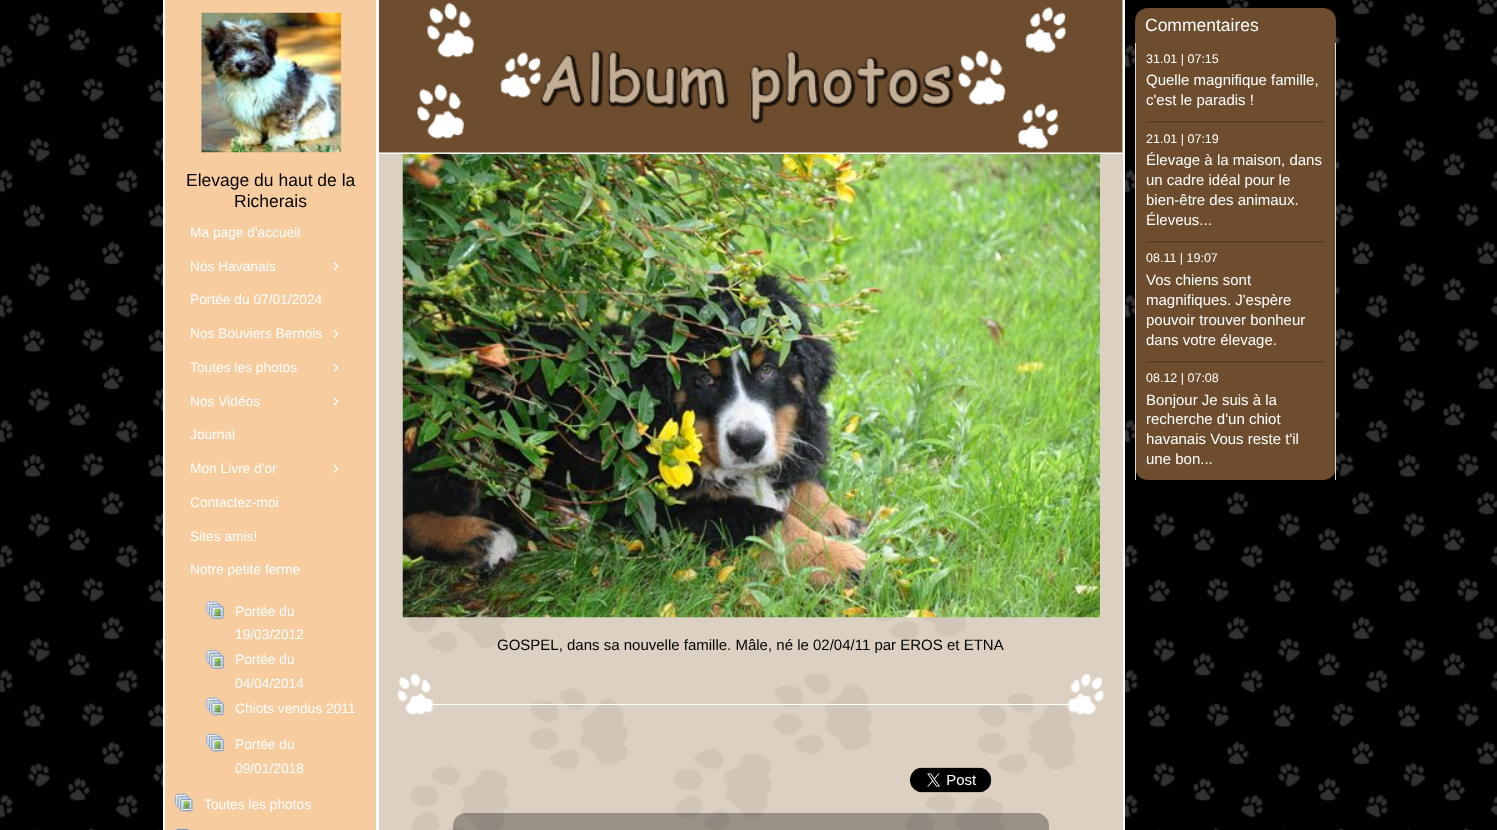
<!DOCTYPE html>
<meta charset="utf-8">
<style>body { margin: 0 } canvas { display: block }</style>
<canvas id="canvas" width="1497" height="830"></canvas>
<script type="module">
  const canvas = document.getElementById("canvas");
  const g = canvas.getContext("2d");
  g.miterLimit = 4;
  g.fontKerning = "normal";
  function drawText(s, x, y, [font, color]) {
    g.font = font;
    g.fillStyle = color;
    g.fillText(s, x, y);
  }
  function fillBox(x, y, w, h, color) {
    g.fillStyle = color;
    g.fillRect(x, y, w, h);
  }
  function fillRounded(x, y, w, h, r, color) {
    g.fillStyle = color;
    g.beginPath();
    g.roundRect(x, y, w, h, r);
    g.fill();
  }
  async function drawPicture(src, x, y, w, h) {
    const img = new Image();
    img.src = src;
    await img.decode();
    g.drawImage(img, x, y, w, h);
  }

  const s1 = ["17.5px Liberation Sans", "#000000"];
  const s2 = ["13.75px Liberation Sans", "#FFFFFF"];
  const s3 = ["15px Liberation Sans", "#000000"];
  const s4 = ["17.5px Liberation Sans", "#FFFFFF"];
  const s5 = ["12.5px Liberation Sans", "#FFFFFF"];
  const s6 = ["15px Liberation Sans", "#FFFFFF"];

  fillBox(0, 0, 1497, 830, "#000000");
  await drawPicture("pic1.png", 0, 0, 1497, 830);
  fillBox(163, 0, 962, 830, "#FFFFFF");
  fillBox(165, 0, 211, 830, "#F7CC9F");
  await drawPicture("pic2.png", 201, 12, 141, 141);
  drawText("Elevage du haut de la", 186, 186, s1);
  drawText("Richerais", 234, 207, s1);
  await drawPicture("pic3.png", 206, 601, 18, 18);
  drawText("Portée du", 235, 616, s2);
  drawText("19/03/2012", 235, 639, s2);
  await drawPicture("pic4.png", 206, 649, 18, 20);
  drawText("Portée du", 235, 664, s2);
  drawText("04/04/2014", 235, 688, s2);
  await drawPicture("pic5.png", 206, 697, 18, 19);
  drawText("Chiots vendus 2011", 235, 713, s2);
  await drawPicture("pic6.png", 206, 733, 18, 19);
  drawText("Portée du", 235, 749, s2);
  drawText("09/01/2018", 235, 773, s2);
  await drawPicture("pic7.png", 174, 793, 19, 19);
  drawText("Toutes les photos", 204, 809, s2);
  await drawPicture("pic8.png", 175, 828, 15, 2);
  fillBox(379, 0, 744, 830, "#DBD0C1");
  await drawPicture("pic9.png", 407, 152, 668, 678);
  fillBox(379, 153, 744, 1, "#FFFFFF");
  await drawPicture("pic10.png", 378, 0, 745, 153);
  await drawPicture("pic11.png", 402, 153, 698, 465);
  drawText("GOSPEL, dans sa nouvelle famille. Mâle, né le 02/04/11 par EROS et ETNA", 497, 650, s3);
  await drawPicture("pic12.png", 397, 674, 37, 41);
  fillBox(434, 704, 634, 1, "#FFFFFF");
  await drawPicture("pic13.png", 1067, 674, 37, 41);
  await drawPicture("pic14.png", 910, 767, 82, 26);
  fillRounded(453, 813, 596, 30, 13, "rgba(0, 0, 0, 0.3)");
  fillRounded(1135, 8, 201, 472, 13, "#6D4D2E");
  drawText("Commentaires", 1145, 31, s4);
  fillBox(1335, 43, 1, 437, "#DADADA");
  fillBox(1135, 43, 1, 437, "#DADADA");
  drawText("31.01 | 07:15", 1146, 63, s5);
  drawText("Quelle magnifique famille,", 1146, 85, s6);
  drawText("c'est le paradis !", 1146, 105, s6);
  await drawPicture("pic15.png", 1146, 121, 179, 2);
  drawText("21.01 | 07:19", 1146, 143, s5);
  drawText("Élevage à la maison, dans", 1146, 165, s6);
  drawText("un cadre idéal pour le", 1146, 185, s6);
  drawText("bien-être des animaux.", 1146, 205, s6);
  drawText("Éleveus...", 1146, 225, s6);
  await drawPicture("pic15.png", 1146, 241, 179, 2);
  drawText("08.11 | 19:07", 1146, 262, s5);
  drawText("Vos chiens sont", 1146, 285, s6);
  drawText("magnifiques. J'espère", 1146, 305, s6);
  drawText("pouvoir trouver bonheur", 1146, 325, s6);
  drawText("dans votre élevage.", 1146, 345, s6);
  await drawPicture("pic15.png", 1146, 361, 179, 2);
  drawText("08.12 | 07:08", 1146, 382, s5);
  drawText("Bonjour Je suis à la", 1146, 405, s6);
  drawText("recherche d'un chiot", 1146, 424, s6);
  drawText("havanais Vous reste t'il", 1146, 444, s6);
  drawText("une bon...", 1146, 464, s6);
  drawText("Ma page d'accueil", 190, 237, s2);
  drawText("Nos Havanais", 190, 271, s2);
  await drawPicture("pic16.png", 333, 262, 6, 9);
  drawText("Portée du 07/01/2024", 190, 304, s2);
  drawText("Nos Bouviers Bernois", 190, 338, s2);
  await drawPicture("pic17.png", 333, 329, 6, 9);
  drawText("Toutes les photos", 190, 372, s2);
  await drawPicture("pic18.png", 333, 363, 6, 9);
  drawText("Nos Vidéos", 190, 406, s2);
  await drawPicture("pic16.png", 333, 397, 6, 9);
  drawText("Journal", 190, 439, s2);
  drawText("Mon Livre d'or", 190, 473, s2);
  await drawPicture("pic17.png", 333, 464, 6, 9);
  drawText("Contactez-moi", 190, 507, s2);
  drawText("Sites amis!", 190, 541, s2);
  drawText("Notre petite ferme", 190, 574, s2);
</script>
